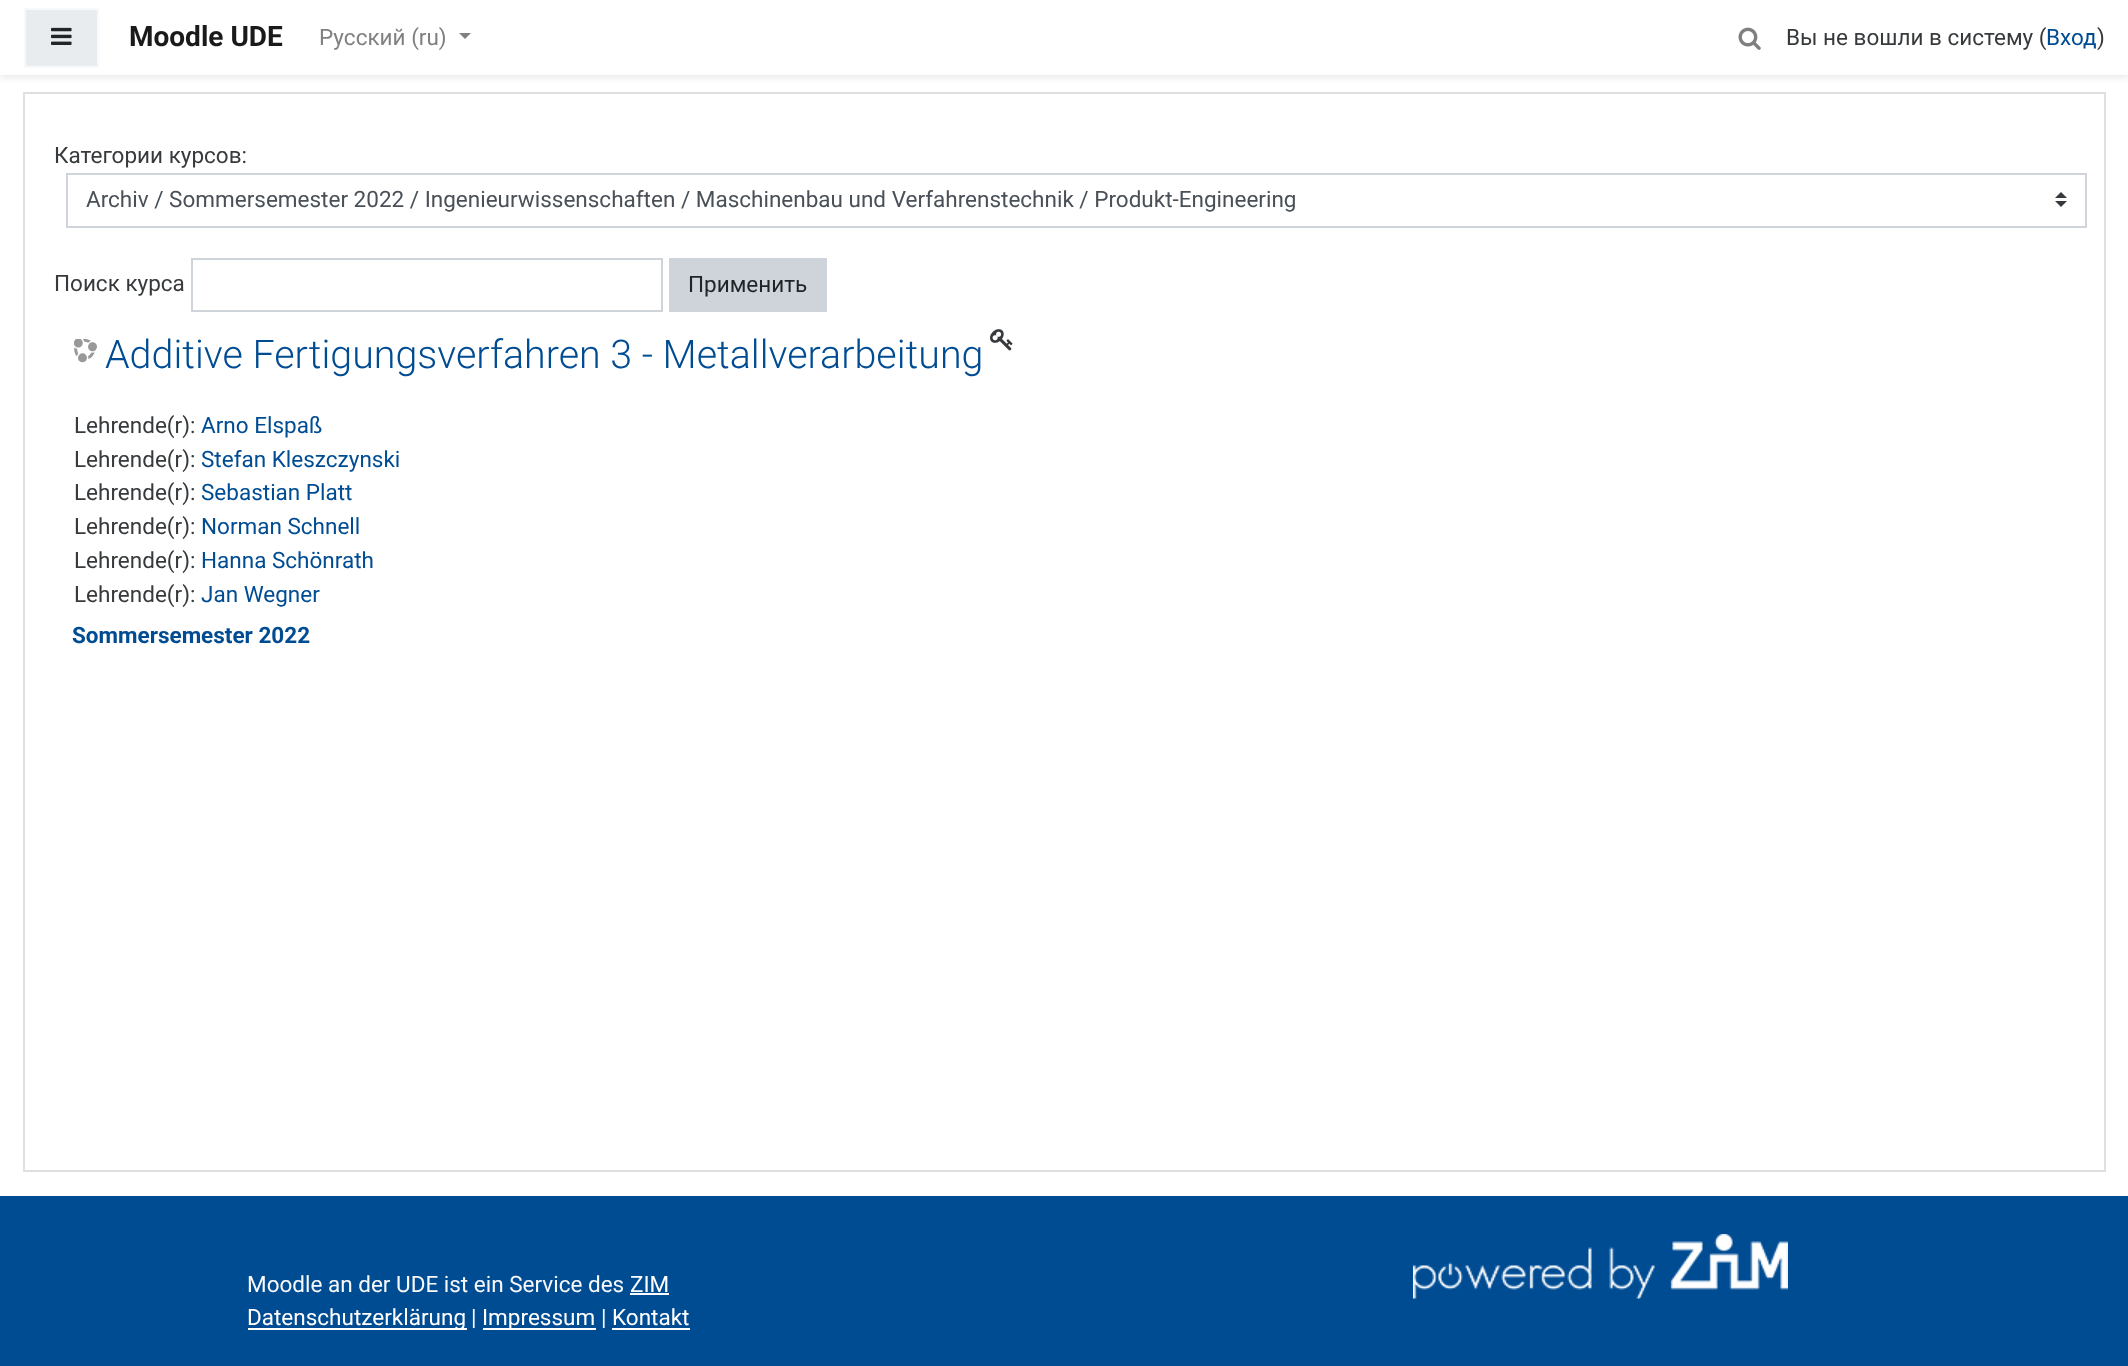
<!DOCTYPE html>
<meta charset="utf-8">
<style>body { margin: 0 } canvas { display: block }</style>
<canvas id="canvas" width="2128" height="1366"></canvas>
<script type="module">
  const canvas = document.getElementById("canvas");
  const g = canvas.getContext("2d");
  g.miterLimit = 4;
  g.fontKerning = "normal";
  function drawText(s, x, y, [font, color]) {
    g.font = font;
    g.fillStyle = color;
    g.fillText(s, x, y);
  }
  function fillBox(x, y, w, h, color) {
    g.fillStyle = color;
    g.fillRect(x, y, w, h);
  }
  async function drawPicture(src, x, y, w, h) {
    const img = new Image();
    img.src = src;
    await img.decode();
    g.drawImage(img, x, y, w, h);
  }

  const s1 = ["bold 28px Roboto", "#1A1A1A"];
  const s2 = ["22.5px Roboto", "#808080"];
  const s3 = ["22.5px Roboto", "#373A3C"];
  const s4 = ["22.5px Roboto", "#004C93"];
  const s5 = ["22.5px Roboto", "#495057"];
  const s6 = ["22.5px Roboto", "#212529"];
  const s7 = ["300 39.4px Roboto", "#004C93"];
  const s8 = ["bold 22.5px Roboto", "#004C93"];
  const s9 = ["22.5px Roboto", "#F8F9FA"];
  const s10 = ["22.5px Roboto", "#FFFFFF"];

  fillBox(0, 0, 2128, 1366, "#FFFFFF");
  g.fillStyle = "rgba(0, 0, 0, 0.08)";
  g.filter = "blur(3px)";
  g.beginPath();
  g.rect(0, 3, 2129, 75);
  g.fill();
  g.filter = "none";
  fillBox(0, 0, 2128, 75, "#FFFFFF");
  g.fillStyle = "#E9ECEF";
  g.beginPath();
  g.rect(25, 9, 73, 58);
  g.fill();
  g.strokeStyle = "#F8F9FA";
  g.lineWidth = 2;
  g.stroke();
  await drawPicture("pic1.png", 51, 27, 21, 18);
  drawText("Moodle UDE", 129, 46, s1);
  drawText("Русский (ru)", 319, 45, s2);
  g.beginPath();
  g.moveTo(459, 33);
  g.lineTo(471, 33);
  g.lineTo(465, 39);
  g.closePath();
  g.fill();
  await drawPicture("pic2.png", 1738, 27, 23, 23);
  drawText("Вы не вошли в систему (", 1786, 45, s3);
  drawText("Вход", 2046, 45, s4);
  drawText(")", 2097, 45, s3);
  g.strokeStyle = "#DFDFDF";
  g.strokeRect(24, 93, 2081, 1078);
  drawText("Категории курсов:", 54, 163, s3);
  await drawPicture("pic3.png", 2055, 192, 12, 15);
  g.strokeStyle = "#CED4DA";
  g.strokeRect(67, 174, 2019, 53);
  drawText("Archiv / Sommersemester 2022 / Ingenieurwissenschaften / Maschinenbau und Verfahrenstechnik / Produkt-Engineering", 86, 207, s5);
  drawText("Поиск курса", 54, 291, s3);
  g.strokeRect(192, 259, 470, 52);
  fillBox(669, 258, 158, 54, "#CED4DA");
  drawText("Применить", 688, 292, s6);
  await drawPicture("pic4.png", 74, 339, 23, 24);
  drawText("Additive Fertigungsverfahren 3 - Metallverarbeitung", 105, 368, s7);
  await drawPicture("pic5.png", 990, 329, 23, 22);
  drawText("Lehrende(r):", 74, 433, s3);
  drawText("Arno Elspaß", 201, 433, s4);
  drawText("Lehrende(r):", 74, 467, s3);
  drawText("Stefan Kleszczynski", 201, 467, s4);
  drawText("Lehrende(r):", 74, 500, s3);
  drawText("Sebastian Platt", 201, 500, s4);
  drawText("Lehrende(r):", 74, 534, s3);
  drawText("Norman Schnell", 201, 534, s4);
  drawText("Lehrende(r):", 74, 568, s3);
  drawText("Hanna Schönrath", 201, 568, s4);
  drawText("Lehrende(r):", 74, 602, s3);
  drawText("Jan Wegner", 201, 602, s4);
  drawText("Sommersemester 2022", 72, 643, s8);
  fillBox(0, 1196, 2128, 170, "#004C93");
  drawText("Moodle an der UDE ist ein Service des", 247, 1292, s9);
  drawText("ZIM", 630, 1292, s10);
  fillBox(630, 1293, 39, 2, "#FFFFFF");
  fillBox(248, 1328, 219, 2, "#FFFFFF");
  drawText("Datenschutzerklärung", 247, 1325, s10);
  drawText("|", 471, 1325, s9);
  fillBox(483, 1328, 113, 2, "#FFFFFF");
  drawText("Impressum", 482, 1325, s10);
  drawText("|", 601, 1325, s9);
  drawText("Kontakt", 612, 1325, s10);
  fillBox(612, 1328, 78, 2, "#FFFFFF");
  await drawPicture("pic6.png", 1413, 1234, 375, 65);
</script>
